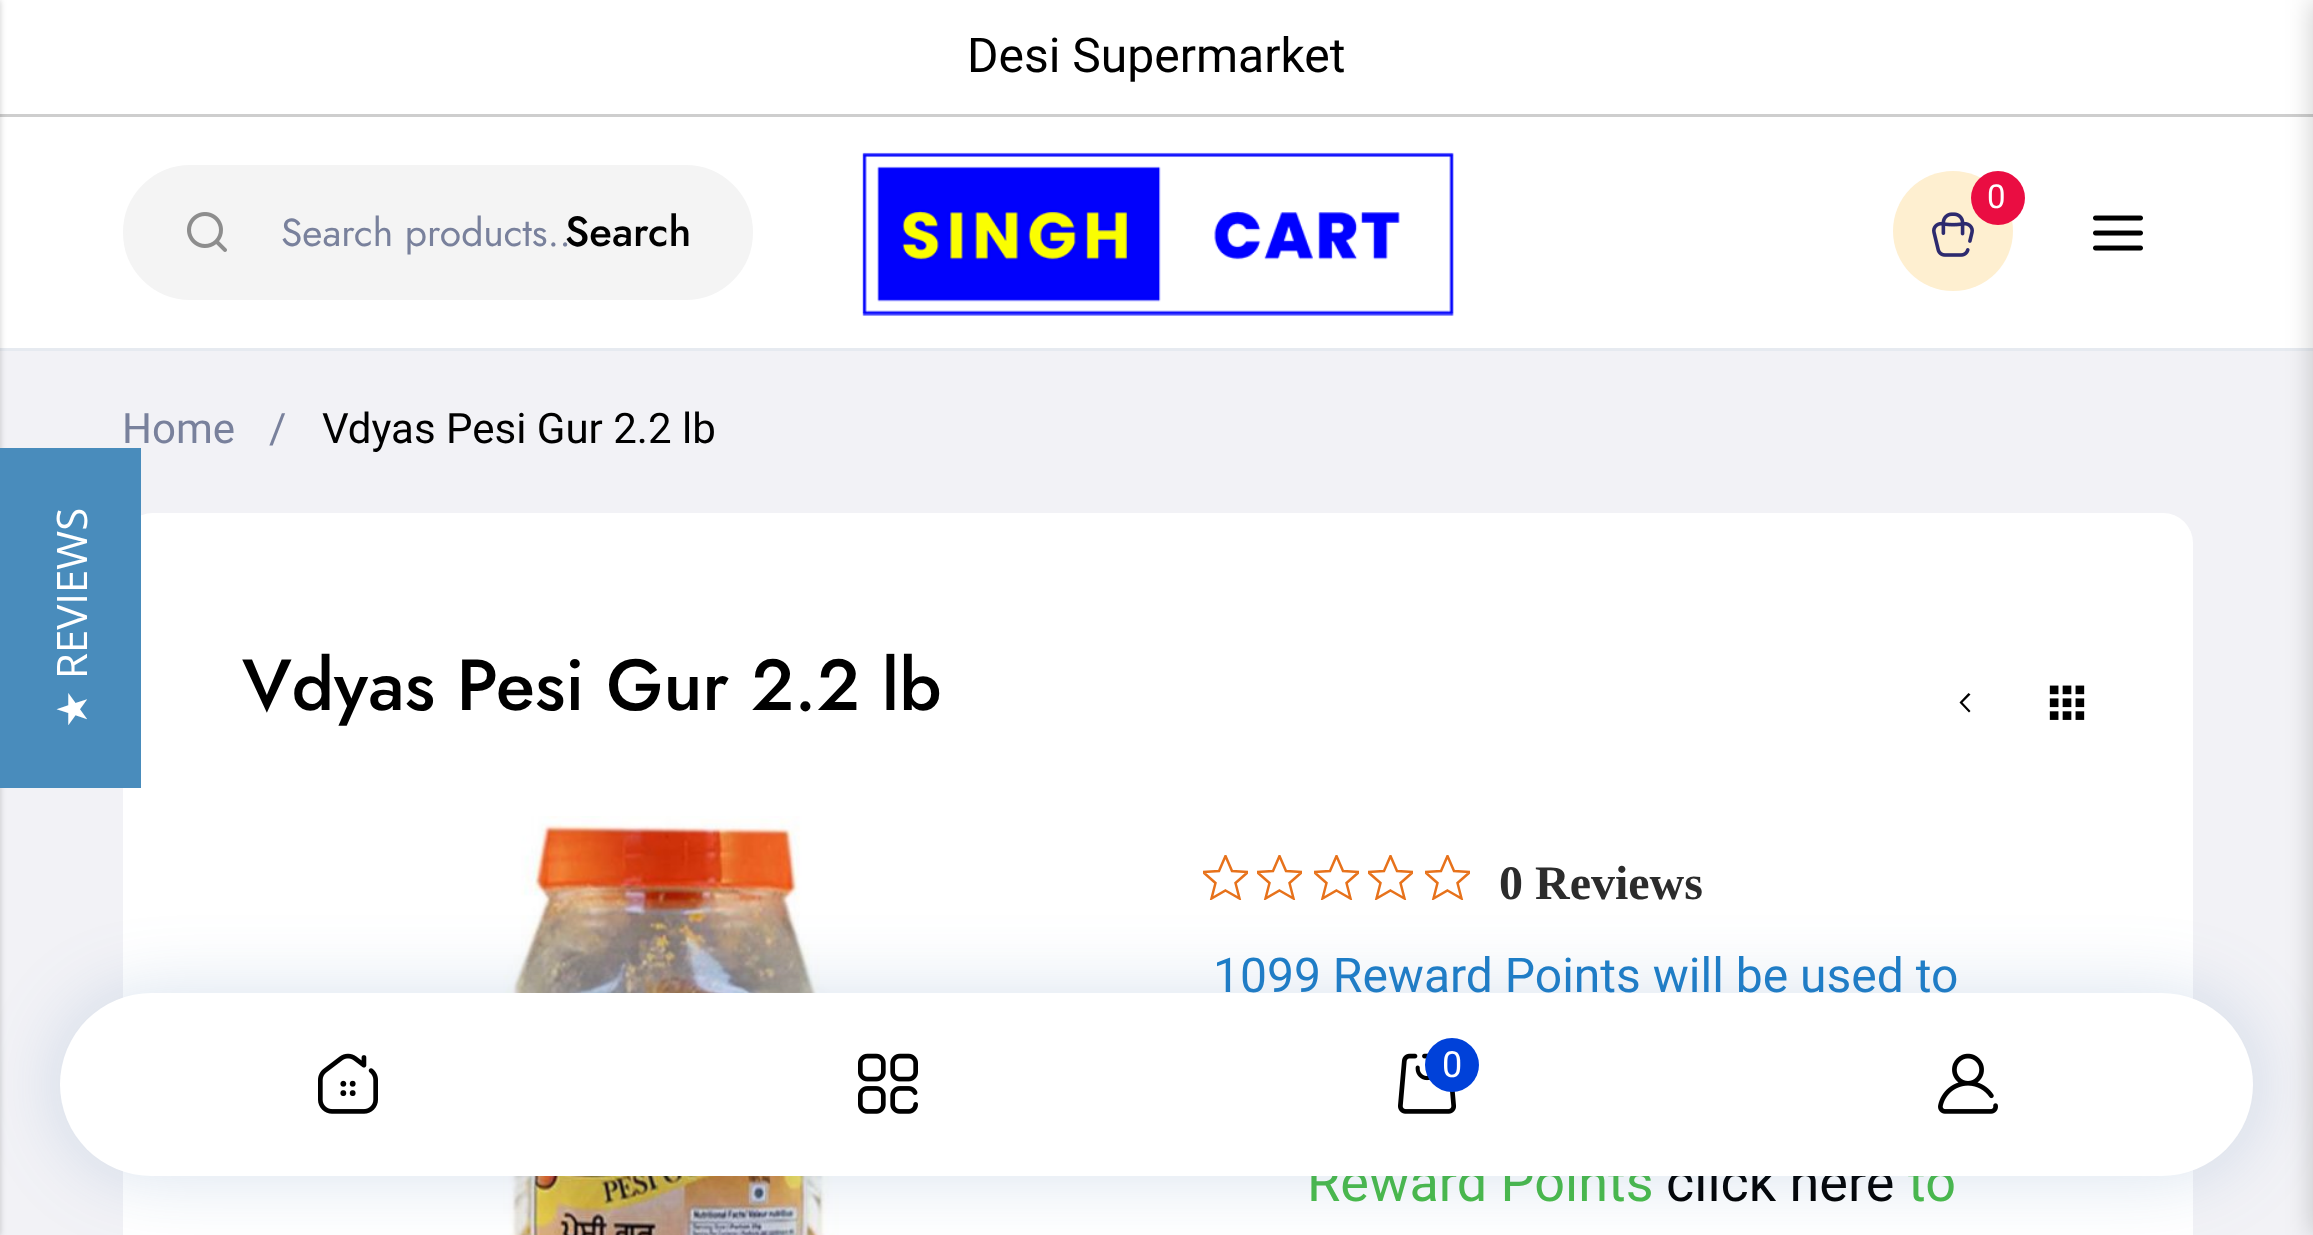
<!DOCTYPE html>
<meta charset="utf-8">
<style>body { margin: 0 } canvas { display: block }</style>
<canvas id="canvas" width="2313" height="1235"></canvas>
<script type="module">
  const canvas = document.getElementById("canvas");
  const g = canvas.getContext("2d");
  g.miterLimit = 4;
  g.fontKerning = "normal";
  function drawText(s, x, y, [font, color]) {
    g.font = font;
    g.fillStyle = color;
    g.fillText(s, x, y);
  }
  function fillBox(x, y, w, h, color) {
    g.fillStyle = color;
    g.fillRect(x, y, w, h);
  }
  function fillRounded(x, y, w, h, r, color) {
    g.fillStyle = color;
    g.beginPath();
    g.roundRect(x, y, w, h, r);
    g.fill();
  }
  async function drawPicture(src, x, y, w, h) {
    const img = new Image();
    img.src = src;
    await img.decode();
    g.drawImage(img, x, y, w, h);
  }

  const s1 = ["48px Roboto", "#000000"];
  const s2 = ["33px Roboto", "#FFFFFF"];
  const s3 = ["39px Jost", "#79819C"];
  const s4 = ["500 42px Jost", "#000000"];
  const s5 = ["42px Roboto", "#79819C"];
  const s6 = ["42px Roboto", "#000000"];
  const s7 = ["500 72px Jost", "#000000"];
  const s8 = ["bold 48px Liberation Serif", "#2C2C2C"];
  const s9 = ["48px Roboto", "#1E7EC8"];
  const s10 = ["54px Roboto", "#4ABC48"];
  const s11 = ["54px Roboto", "#000000"];
  const s12 = ["36px Roboto", "#FFFFFF"];

  fillBox(0, 0, 2313, 1235, "#F2F2F6");
  fillBox(0, 0, 2313, 114, "#FFFFFF");
  fillBox(0, 114, 2313, 3, "#CECECE");
  fillBox(0, 117, 2313, 231, "#FFFFFF");
  fillBox(0, 348, 2313, 3, "#E6EAF0");
  g.fillStyle = "rgba(0, 0, 0, 0.2)";
  g.filter = "blur(3px)";
  g.beginPath();
  g.rect(-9, 0, 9, 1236);
  g.fill();
  g.filter = "none";
  fillRounded(123, 513, 2070, 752, 30, "#FFFFFF");
  fillBox(0, 448, 141, 340, "#498CBC");
  g.font = "42px Open Sans";
  g.fillStyle = "#FFFFFF";
  g.save();
  g.translate(87, 679);
  g.rotate(-90 * Math.PI / 180);
  g.fillText("REVIEWS", 0, 0);
  g.restore();
  g.font = "42px DejaVu Sans";
  g.save();
  g.translate(87, 728);
  g.rotate(-90 * Math.PI / 180);
  g.fillText("★", 0, 0);
  g.restore();
  drawText("Desi Supermarket", 967, 72, s1);
  await drawPicture("pic1.png", 862, 152, 592, 164);
  g.fillStyle = "#FEEFD0";
  g.beginPath();
  g.arc(1953, 231, 60, 0, Math.PI * 2);
  g.fill();
  await drawPicture("pic2.png", 1932, 212, 42, 45);
  g.fillStyle = "#EA0D42";
  g.beginPath();
  g.arc(1998, 198, 27, 0, Math.PI * 2);
  g.fill();
  drawText("0", 1987, 208, s2);
  g.fillStyle = "rgba(0, 0, 0, 0.2)";
  g.filter = "blur(13.5px)";
  g.beginPath();
  g.rect(2313, 0, 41, 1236);
  g.fill();
  g.filter = "none";
  await drawPicture("pic3.png", 2093, 215, 50, 36);
  g.fillStyle = "#F4F4F4";
  g.beginPath();
  g.roundRect(124.5, 166.5, 627, 132, 66);
  g.fill();
  g.strokeStyle = "#F4F4F4";
  g.lineWidth = 3;
  g.stroke();
  await drawPicture("pic4.png", 187, 212, 40, 40);
  drawText("Search products...", 281, 246, s3);
  drawText("Search", 565, 246, s4);
  drawText("Home", 122, 443, s5);
  drawText("/", 269, 443, s5);
  drawText("Vdyas Pesi Gur 2.2 lb", 322, 443, s6);
  drawText("Vdyas Pesi Gur 2.2 lb", 242, 710, s7);
  g.beginPath();
  g.moveTo(1962.5, 702.5);
  g.lineTo(1970.5, 694.5);
  g.lineTo(1968.5, 693);
  g.lineTo(1959.5, 702.5);
  g.lineTo(1969, 712.5);
  g.lineTo(1970.5, 711);
  g.closePath();
  g.fill();
  await drawPicture("pic5.png", 2049, 685, 36, 35);
  await drawPicture("pic6.png", 503, 816, 336, 419);
  g.save();
  g.beginPath();
  g.rect(1203, 855, 45, 45);
  g.clip();
  g.beginPath();
  g.moveTo(1225.5, 890.5);
  g.lineTo(1239.5, 898.5);
  g.lineTo(1235.5, 883);
  g.lineTo(1248, 872);
  g.lineTo(1232, 871);
  g.lineTo(1225.5, 856);
  g.lineTo(1219, 871);
  g.lineTo(1203, 872);
  g.lineTo(1215.5, 883);
  g.lineTo(1211.5, 898.5);
  g.closePath();
  g.strokeStyle = "#E7721B";
  g.lineWidth = 2.5;
  g.stroke();
  g.restore();
  g.save();
  g.beginPath();
  g.rect(1257, 855, 45, 45);
  g.clip();
  g.beginPath();
  g.moveTo(1279.5, 890.5);
  g.lineTo(1293.5, 898.5);
  g.lineTo(1289.5, 883);
  g.lineTo(1302, 872);
  g.lineTo(1286, 871);
  g.lineTo(1279.5, 856);
  g.lineTo(1273, 871);
  g.lineTo(1257, 872);
  g.lineTo(1269.5, 883);
  g.lineTo(1265.5, 898.5);
  g.closePath();
  g.strokeStyle = "#E7721B";
  g.lineWidth = 2.5;
  g.stroke();
  g.restore();
  g.save();
  g.beginPath();
  g.rect(1314, 855, 45, 45);
  g.clip();
  g.beginPath();
  g.moveTo(1336.5, 890.5);
  g.lineTo(1350.5, 898.5);
  g.lineTo(1346.5, 883);
  g.lineTo(1359, 872);
  g.lineTo(1343, 871);
  g.lineTo(1336.5, 856);
  g.lineTo(1330, 871);
  g.lineTo(1314, 872);
  g.lineTo(1326.5, 883);
  g.lineTo(1322.5, 898.5);
  g.closePath();
  g.strokeStyle = "#E7721B";
  g.lineWidth = 2.5;
  g.stroke();
  g.restore();
  g.save();
  g.beginPath();
  g.rect(1368, 855, 45, 45);
  g.clip();
  g.beginPath();
  g.moveTo(1390.5, 890.5);
  g.lineTo(1404.5, 898.5);
  g.lineTo(1400.5, 883);
  g.lineTo(1413, 872);
  g.lineTo(1397, 871);
  g.lineTo(1390.5, 856);
  g.lineTo(1384, 871);
  g.lineTo(1368, 872);
  g.lineTo(1380.5, 883);
  g.lineTo(1376.5, 898.5);
  g.closePath();
  g.strokeStyle = "#E7721B";
  g.lineWidth = 2.5;
  g.stroke();
  g.restore();
  g.save();
  g.beginPath();
  g.rect(1425, 855, 45, 45);
  g.clip();
  g.beginPath();
  g.moveTo(1447.5, 890.5);
  g.lineTo(1461.5, 898.5);
  g.lineTo(1457.5, 883);
  g.lineTo(1470, 872);
  g.lineTo(1454, 871);
  g.lineTo(1447.5, 856);
  g.lineTo(1441, 871);
  g.lineTo(1425, 872);
  g.lineTo(1437.5, 883);
  g.lineTo(1433.5, 898.5);
  g.closePath();
  g.strokeStyle = "#E7721B";
  g.lineWidth = 2.5;
  g.stroke();
  g.restore();
  drawText("0 Reviews", 1499, 899, s8);
  drawText("1099 Reward Points will be used to", 1213, 992, s9);
  drawText("Reward Points", 1307, 1201, s10);
  drawText("click here", 1666, 1201, s11);
  drawText("to", 1908, 1201, s10);
  g.fillStyle = "rgba(61, 110, 168, 0.2)";
  g.filter = "blur(37.5px)";
  g.beginPath();
  g.roundRect(60, 993, 2193, 183, 91.5);
  g.fill();
  g.filter = "none";
  fillRounded(60, 993, 2193, 183, 91.5, "#FFFFFF");
  await drawPicture("pic7.png", 318, 1053, 60, 61);
  await drawPicture("pic8.png", 858, 1053, 60, 61);
  await drawPicture("pic9.png", 1398, 1053, 58, 61);
  g.fillStyle = "#0041D9";
  g.beginPath();
  g.arc(1452, 1065, 27, 0, Math.PI * 2);
  g.fill();
  drawText("0", 1442, 1077, s12);
  await drawPicture("pic10.png", 1938, 1053, 60, 61);
</script>
